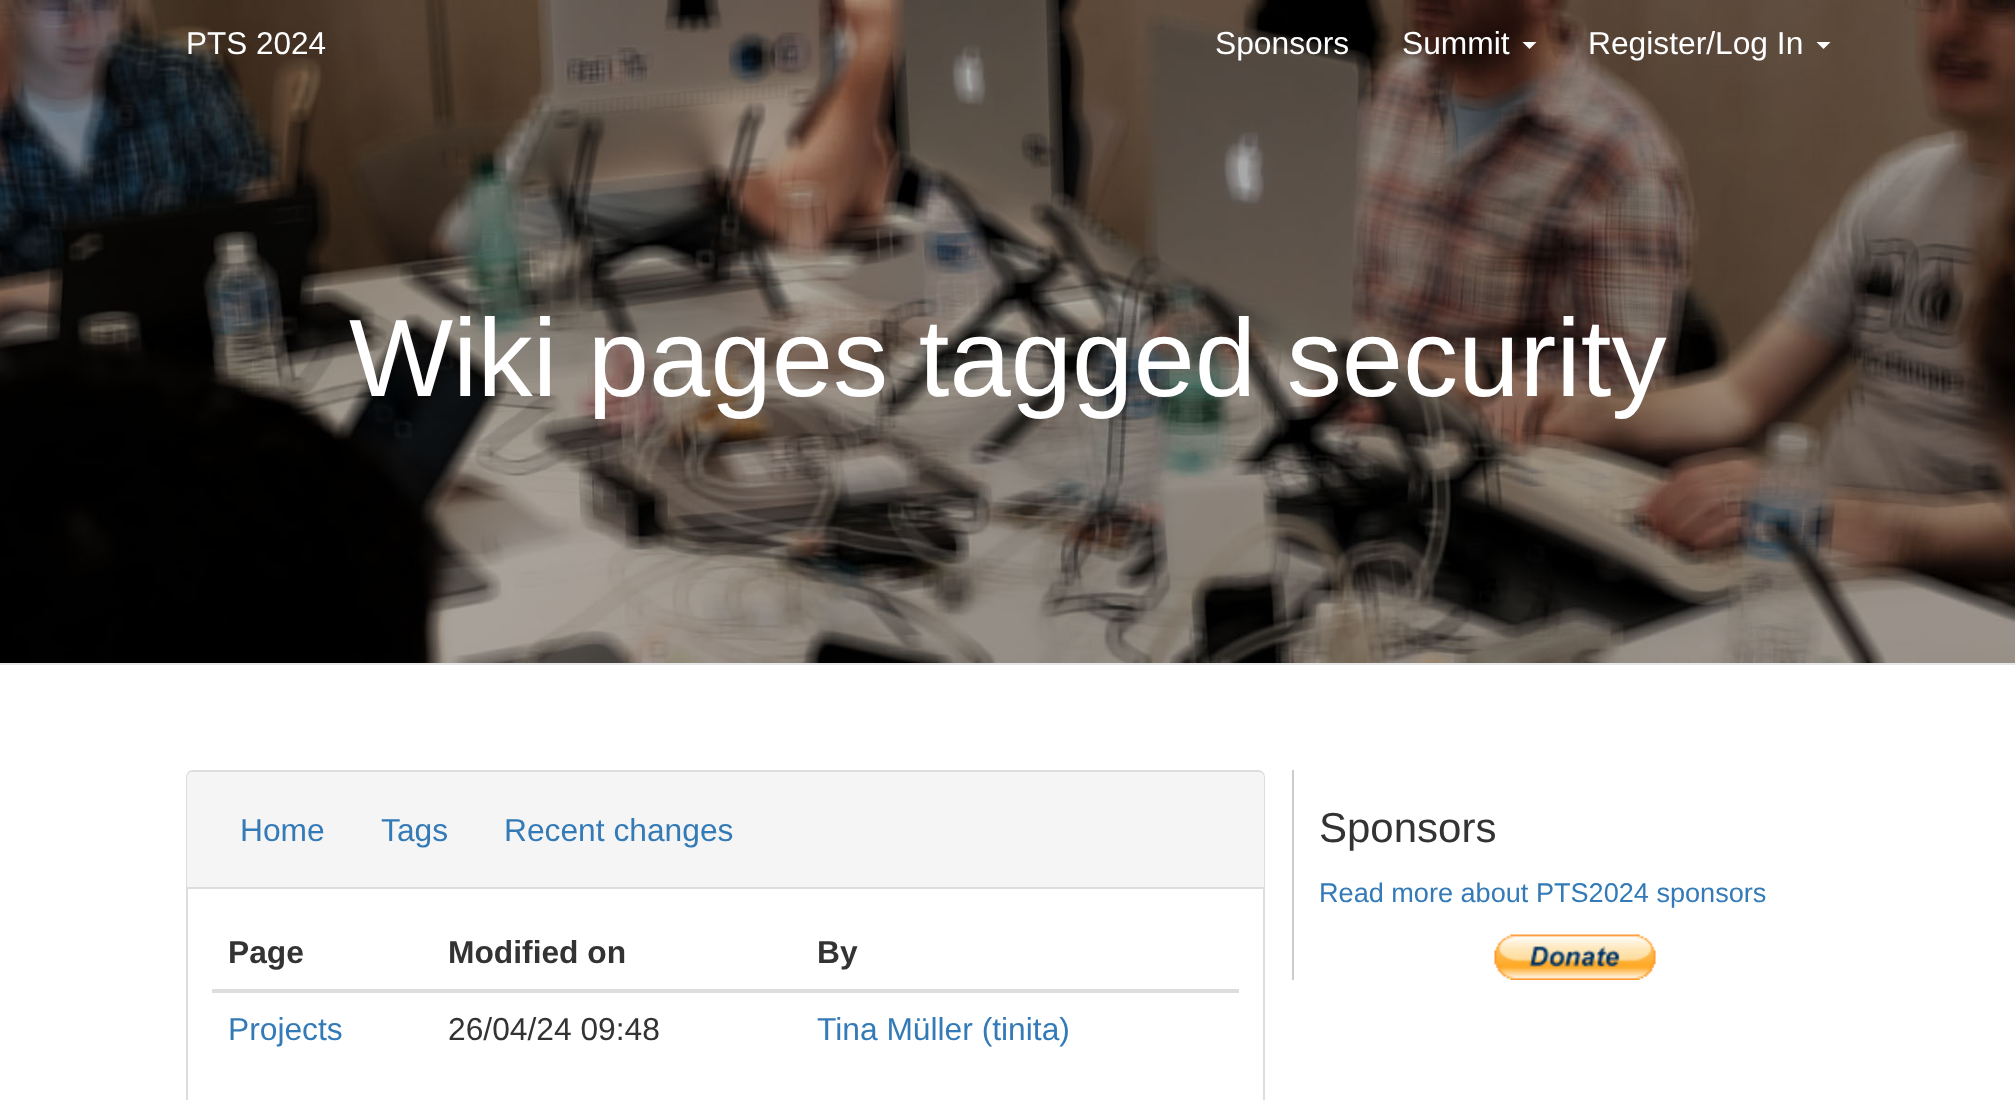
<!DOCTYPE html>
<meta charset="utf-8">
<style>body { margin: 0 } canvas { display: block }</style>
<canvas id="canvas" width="2015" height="1100"></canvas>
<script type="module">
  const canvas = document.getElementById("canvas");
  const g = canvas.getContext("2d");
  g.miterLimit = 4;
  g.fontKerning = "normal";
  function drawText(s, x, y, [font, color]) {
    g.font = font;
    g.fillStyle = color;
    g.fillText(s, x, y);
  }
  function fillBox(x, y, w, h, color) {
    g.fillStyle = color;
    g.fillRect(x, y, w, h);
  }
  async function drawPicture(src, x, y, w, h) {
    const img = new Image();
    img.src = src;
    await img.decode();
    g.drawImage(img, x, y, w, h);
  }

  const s1 = ["31.5px Liberation Sans", "#FFFFFF"];
  const s2 = ["31.75px Liberation Sans", "#FFFFFF"];
  const s3 = ["110.25px Liberation Sans", "#FFFFFF"];
  const s4 = ["31.75px Liberation Sans", "#337AB7"];
  const s5 = ["bold 31.75px Liberation Sans", "#333333"];
  const s6 = ["31.75px Liberation Sans", "#333333"];
  const s7 = ["42px Liberation Sans", "#333333"];
  const s8 = ["27.1px Liberation Sans", "#337AB7"];

  fillBox(0, 0, 2015, 1100, "#FFFFFF");
  await drawPicture("pic1.png", 0, 0, 2015, 663);
  fillBox(0, 663, 2015, 2, "#E7E7E7");
  drawText("PTS 2024", 186, 54, s1);
  drawText("Sponsors", 1215, 54, s2);
  drawText("Summit", 1402, 54, s2);
  g.beginPath();
  g.moveTo(1522.5, 42);
  g.lineTo(1536.5, 42);
  g.lineTo(1529.5, 49);
  g.closePath();
  g.fill();
  drawText("Register/Log In", 1588, 54, s2);
  g.beginPath();
  g.moveTo(1816.5, 42);
  g.lineTo(1830.5, 42);
  g.lineTo(1823.5, 49);
  g.closePath();
  g.fill();
  drawText("Wiki pages tagged security", 349, 396, s3);
  g.beginPath();
  g.roundRect(187, 771, 1077, 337, 6);
  g.strokeStyle = "#DDDDDD";
  g.lineWidth = 2;
  g.stroke();
  g.fillStyle = "#F5F5F5";
  g.beginPath();
  g.roundRect(187, 772, 1077, 117, [5, 5, 0, 0]);
  g.fill();
  fillBox(187, 887, 1077, 2, "#DDDDDD");
  drawText("Home", 240, 841, s4);
  drawText("Tags", 381, 841, s4);
  drawText("Recent changes", 504, 841, s4);
  drawText("Page", 228, 963, s5);
  drawText("Modified on", 448, 963, s5);
  fillBox(212, 989, 1027, 4, "#DDDDDD");
  drawText("By", 817, 963, s5);
  drawText("Projects", 228, 1040, s4);
  drawText("26/04/24 09:48", 448, 1040, s6);
  drawText("Tina Müller (tinita)", 817, 1040, s4);
  fillBox(1292, 770, 2, 210, "#CCCCCC");
  drawText("Sponsors", 1319, 842, s7);
  drawText("Read more about PTS2024 sponsors", 1319, 902, s8);
  await drawPicture("pic2.png", 1494, 934, 162, 46);
</script>
